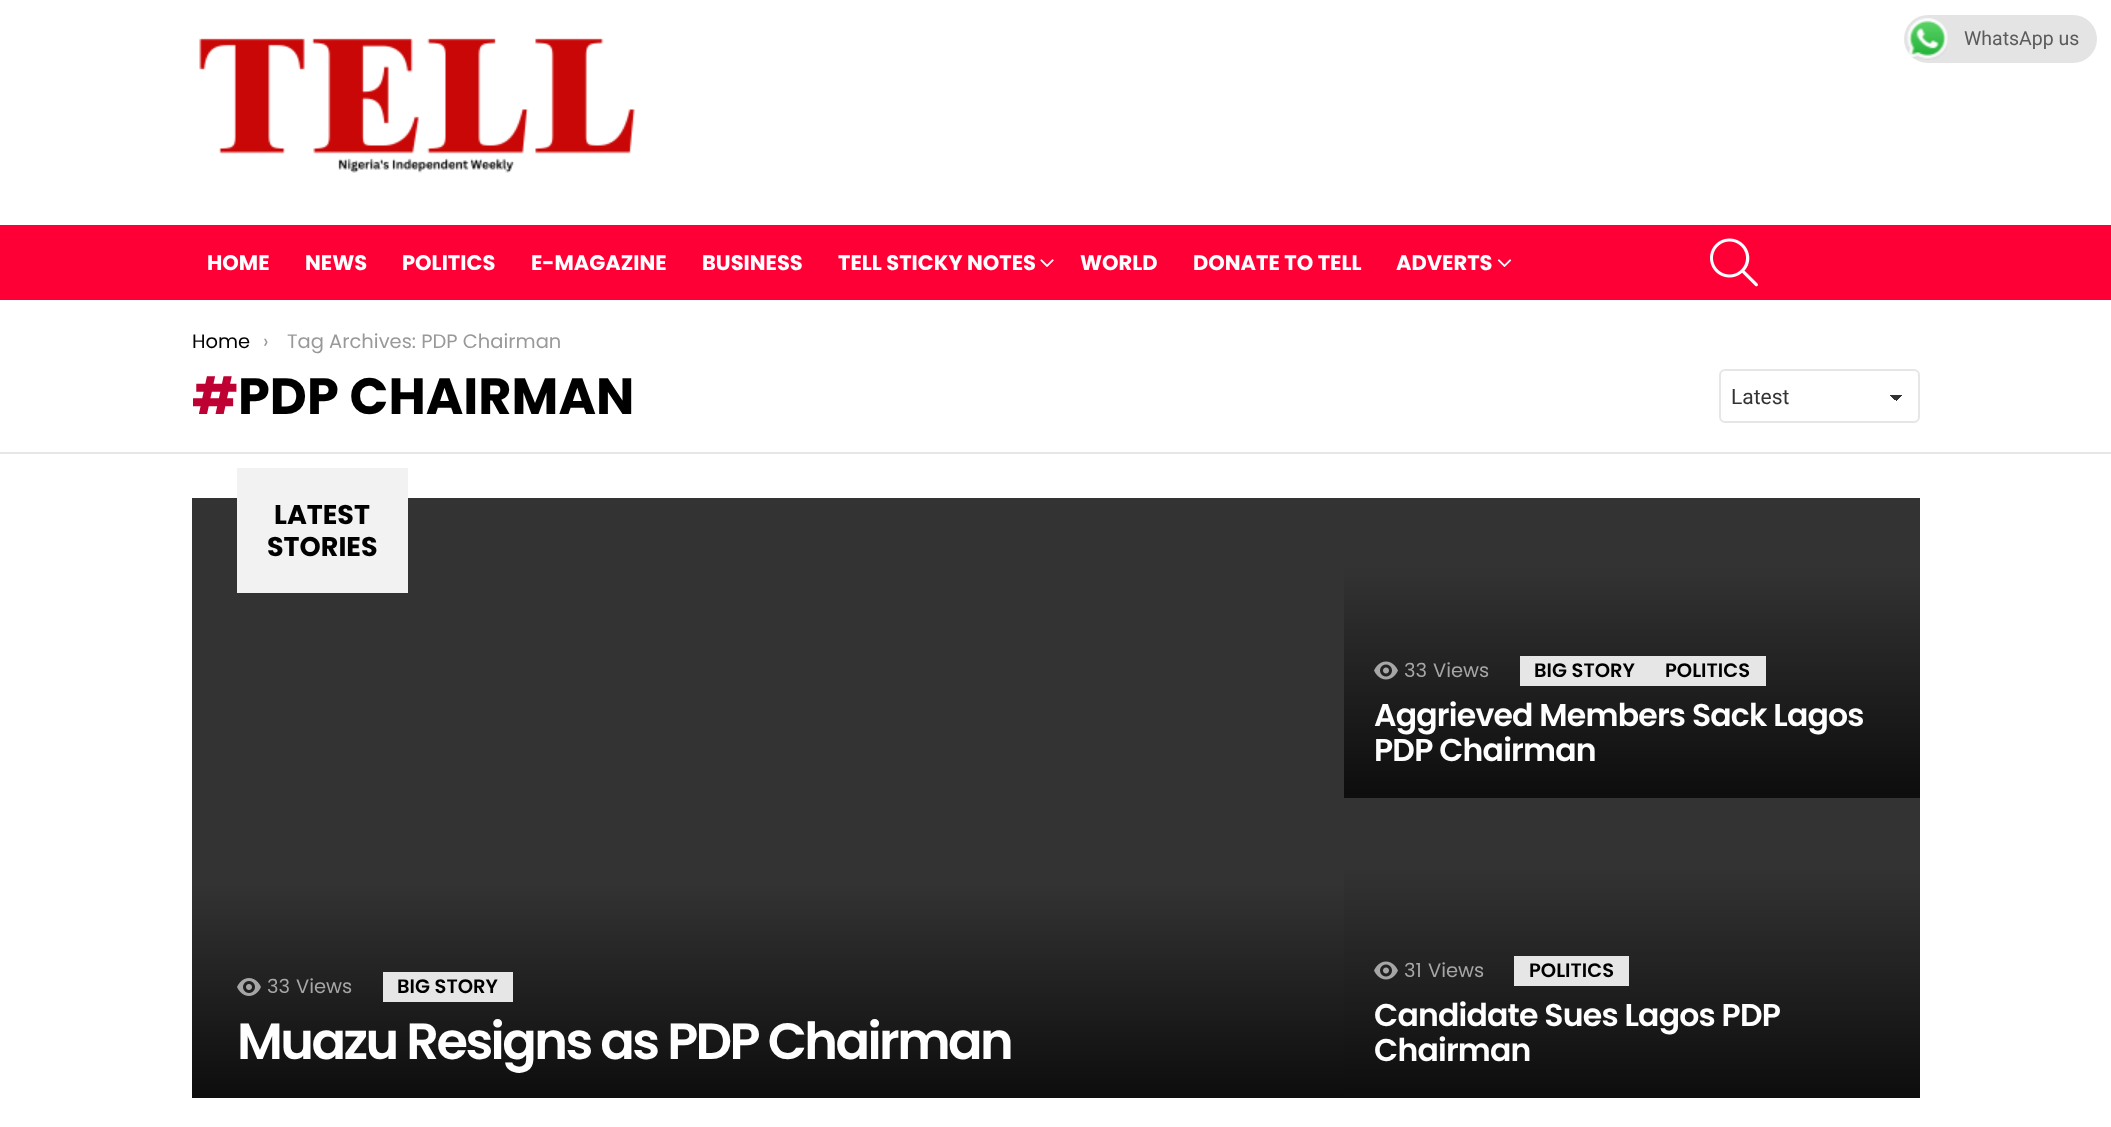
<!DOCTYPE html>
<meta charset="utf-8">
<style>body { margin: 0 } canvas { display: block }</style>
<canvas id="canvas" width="2111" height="1127"></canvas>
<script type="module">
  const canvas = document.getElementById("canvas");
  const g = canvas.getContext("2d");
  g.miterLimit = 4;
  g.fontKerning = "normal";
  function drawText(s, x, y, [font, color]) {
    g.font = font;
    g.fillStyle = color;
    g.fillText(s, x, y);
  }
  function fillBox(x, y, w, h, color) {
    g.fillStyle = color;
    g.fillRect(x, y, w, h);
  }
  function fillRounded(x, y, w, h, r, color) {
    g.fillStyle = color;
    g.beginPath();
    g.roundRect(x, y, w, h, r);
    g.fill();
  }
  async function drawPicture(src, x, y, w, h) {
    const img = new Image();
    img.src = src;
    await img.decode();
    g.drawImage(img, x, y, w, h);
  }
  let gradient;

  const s1 = ["19.5px Roboto", "#5B5B5B"];
  const s2 = ["bold 21px Poppins", "#FFFFFF"];
  const s3 = ["19.5px Poppins", "#000000"];
  const s4 = ["19.5px Poppins", "#999999"];
  const s5 = ["bold 51px Poppins", "#BF0033"];
  const s6 = ["bold 51px Poppins", "#000000"];
  const s7 = ["21px Roboto", "#333333"];
  const s8 = ["bold 27px Poppins", "#000000"];
  const s9 = ["19.5px Poppins", "#A6A6A6"];
  const s10 = ["600 19.5px Poppins", "#000000"];
  const s11 = ["600 31.5px Poppins", "#FFFFFF"];
  const s12 = ["600 51px Poppins", "#FFFFFF"];

  fillBox(0, 0, 2111, 1127, "#FFFFFF");
  fillRounded(1904, 15, 193, 48, 24, "#E4E4E4");
  await drawPicture("pic1.png", 1907, 18, 41, 42);
  drawText("WhatsApp us", 1964, 45, s1);
  await drawPicture("pic2.png", 199, 38, 436, 135);
  fillBox(0, 225, 2111, 75, "#FF0036");
  drawText("HOME", 207, 270, s2);
  drawText("NEWS", 305, 270, s2);
  drawText("POLITICS", 402, 270, s2);
  drawText("E-MAGAZINE", 531, 270, s2);
  drawText("BUSINESS", 702, 270, s2);
  drawText("TELL STICKY NOTES", 838, 270, s2);
  await drawPicture("pic3.png", 1040, 259, 14, 8);
  drawText("WORLD", 1080, 270, s2);
  drawText("DONATE TO TELL", 1193, 270, s2);
  drawText("ADVERTS", 1396, 270, s2);
  await drawPicture("pic4.png", 1497, 259, 15, 8);
  await drawPicture("pic5.png", 1710, 238, 48, 49);
  drawText("Home", 192, 348, s3);
  drawText("›", 263, 348, s4);
  drawText("Tag Archives: PDP Chairman", 287, 348, s4);
  drawText("#", 192, 414, s5);
  drawText("PDP CHAIRMAN", 238, 414, s6);
  gradient = g.createLinearGradient(1896, 394, 1903, 401);
  gradient.addColorStop(0.5, "#333333");
  gradient.addColorStop(0.5, "#FFFFFF");
  g.fillStyle = gradient;
  g.fillRect(1896, 395, 8, 6);
  gradient = g.createLinearGradient(1889, 401, 1896, 394);
  gradient.addColorStop(0.5, "#FFFFFF");
  gradient.addColorStop(0.5, "#333333");
  g.fillStyle = gradient;
  g.fillRect(1889, 395, 7, 5);
  g.beginPath();
  g.roundRect(1720, 370, 199, 52, 5);
  g.strokeStyle = "#E6E6E6";
  g.lineWidth = 2;
  g.stroke();
  drawText("Latest", 1731, 404, s7);
  fillBox(0, 452, 2111, 2, "#E6E6E6");
  fillBox(192, 498, 1152, 384, "#333333");
  fillBox(237, 468, 171, 125, "#F2F2F2");
  drawText("LATEST", 274, 524, s8);
  drawText("STORIES", 267, 556, s8);
  fillBox(1344, 498, 576, 68, "#333333");
  gradient = g.createLinearGradient(1632, 566, 1632, 798);
  gradient.addColorStop(0, "#333333");
  gradient.addColorStop(1, "#0D0D0D");
  g.fillStyle = gradient;
  g.fillRect(1344, 566, 576, 232);
  await drawPicture("pic6.png", 1374, 661, 24, 19);
  drawText("33", 1404, 677, s9);
  drawText("Views", 1433, 677, s9);
  fillBox(1520, 656, 246, 30, "#E6E6E6");
  drawText("BIG STORY", 1534, 677, s10);
  drawText("POLITICS", 1665, 677, s10);
  g.letterSpacing = "-0.8px";
  drawText("Aggrieved Members Sack Lagos", 1374, 726, s11);
  drawText("PDP Chairman", 1374, 761, s11);
  gradient = g.createLinearGradient(768, 882, 768, 1098);
  gradient.addColorStop(0, "#333333");
  gradient.addColorStop(1, "#0D0D0D");
  g.fillStyle = gradient;
  g.fillRect(192, 882, 1152, 216);
  await drawPicture("pic7.png", 237, 978, 24, 18);
  g.letterSpacing = "0px";
  drawText("33", 267, 993, s9);
  drawText("Views", 296, 993, s9);
  fillBox(383, 972, 130, 30, "#E6E6E6");
  drawText("BIG STORY", 397, 993, s10);
  g.letterSpacing = "-2.55px";
  drawText("Muazu Resigns as PDP Chairman", 237, 1059, s12);
  fillBox(1344, 798, 576, 68, "#333333");
  gradient = g.createLinearGradient(1632, 866, 1632, 1098);
  gradient.addColorStop(0, "#333333");
  gradient.addColorStop(1, "#0D0D0D");
  g.fillStyle = gradient;
  g.fillRect(1344, 866, 576, 232);
  await drawPicture("pic6.png", 1374, 961, 24, 19);
  g.letterSpacing = "0px";
  drawText("31", 1404, 977, s9);
  drawText("Views", 1428, 977, s9);
  fillBox(1514, 956, 115, 30, "#E6E6E6");
  drawText("POLITICS", 1529, 977, s10);
  g.letterSpacing = "-0.8px";
  drawText("Candidate Sues Lagos PDP", 1374, 1026, s11);
  drawText("Chairman", 1374, 1061, s11);
</script>
